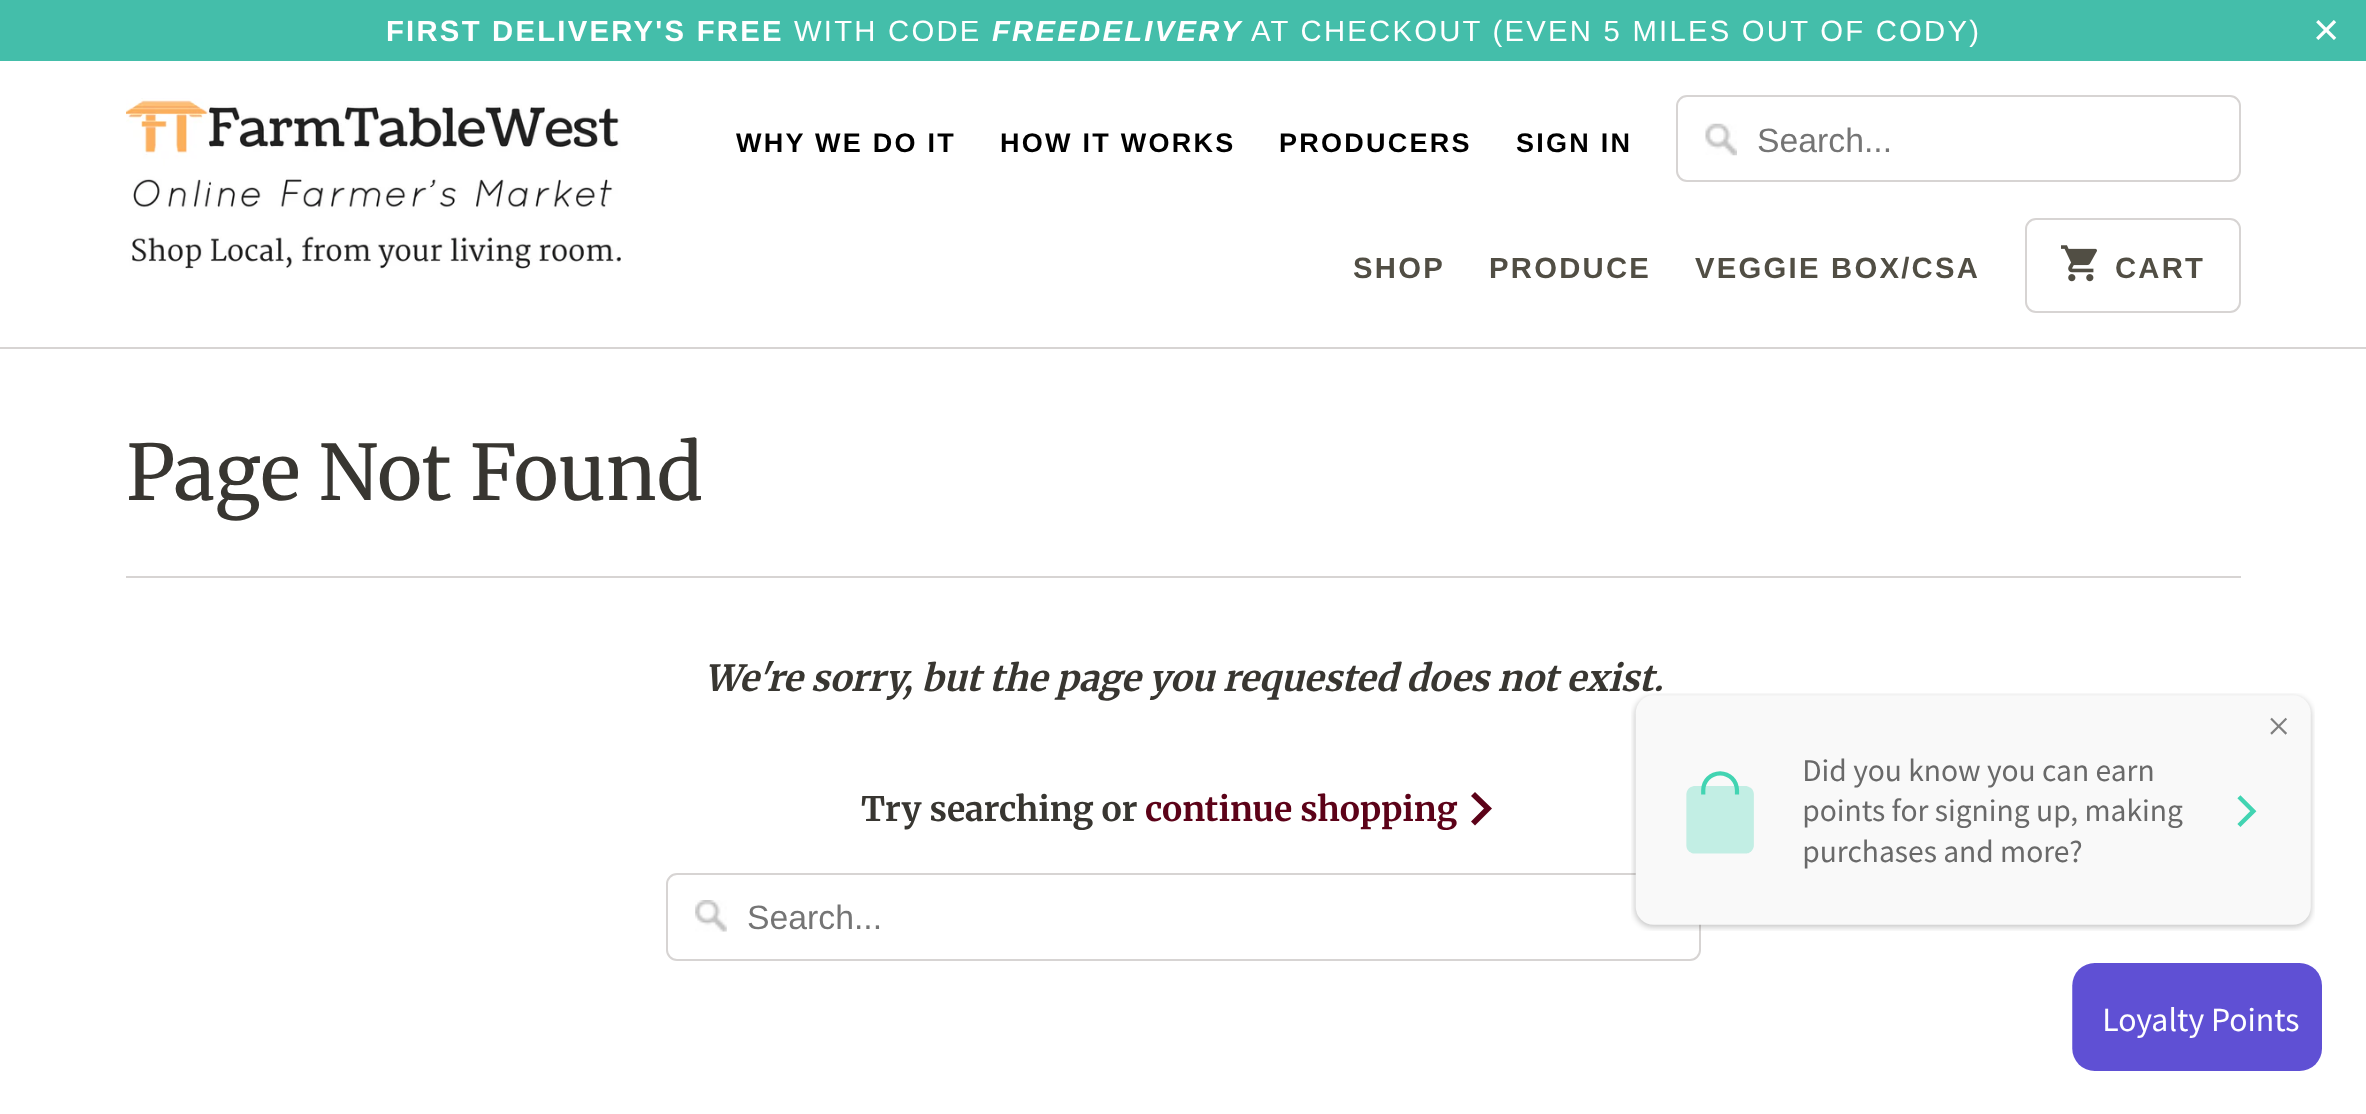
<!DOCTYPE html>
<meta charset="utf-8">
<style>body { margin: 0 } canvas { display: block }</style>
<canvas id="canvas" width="2366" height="1114"></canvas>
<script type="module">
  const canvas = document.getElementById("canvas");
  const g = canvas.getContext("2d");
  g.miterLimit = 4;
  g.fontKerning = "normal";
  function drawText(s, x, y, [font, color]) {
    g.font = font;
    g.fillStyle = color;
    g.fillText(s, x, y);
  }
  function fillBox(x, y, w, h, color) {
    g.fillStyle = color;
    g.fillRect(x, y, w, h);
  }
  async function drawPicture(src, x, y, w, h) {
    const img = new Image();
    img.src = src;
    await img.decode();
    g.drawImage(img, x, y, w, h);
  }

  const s1 = ["bold 29.25px Liberation Sans", "#FFFFFF"];
  const s2 = ["29.25px Liberation Sans", "#FFFFFF"];
  const s3 = ["italic bold 29.25px Liberation Sans", "#FFFFFF"];
  const s4 = ["45px Liberation Sans", "#FFFFFF"];
  const s5 = ["bold 27px Liberation Sans", "#000000"];
  const s6 = ["33.75px Liberation Sans", "#757575"];
  const s7 = ["bold 29.25px Liberation Sans", "#514E44"];
  const s8 = ["76.5px Merriweather", "#383631"];
  const s9 = ["italic bold 36px Merriweather", "#383631"];
  const s10 = ["bold 33.75px Merriweather", "#383631"];
  const s11 = ["bold 33.75px Merriweather", "#5C0218"];

  fillBox(0, 0, 2366, 1114, "#FFFFFF");
  fillBox(0, 0, 2366, 61, "#44BEAA");
  g.letterSpacing = "2.25px";
  drawText("FIRST DELIVERY'S FREE", 386, 41, s1);
  drawText("WITH CODE", 794, 41, s2);
  drawText("FREEDELIVERY", 992, 41, s3);
  drawText("AT CHECKOUT (EVEN 5 MILES OUT OF CODY)", 1251, 41, s2);
  drawText("×", 2313, 45, s4);
  fillBox(0, 347, 2366, 2, "#D7D4D3");
  await drawPicture("pic1.png", 126, 98, 495, 171);
  drawText("WHY WE DO IT", 736, 152, s5);
  drawText("HOW IT WORKS", 1000, 152, s5);
  drawText("PRODUCERS", 1279, 152, s5);
  drawText("SIGN IN", 1516, 152, s5);
  await drawPicture("pic2.png", 1705, 123, 32, 33);
  g.beginPath();
  g.roundRect(1677, 96, 563, 85, 10);
  g.strokeStyle = "#D7D4D3";
  g.lineWidth = 2;
  g.stroke();
  g.letterSpacing = "0px";
  drawText("Search...", 1757, 152, s6);
  g.letterSpacing = "2.25px";
  drawText("SHOP", 1353, 278, s7);
  drawText("PRODUCE", 1489, 278, s7);
  drawText("VEGGIE BOX/CSA", 1695, 278, s7);
  g.beginPath();
  g.roundRect(2026, 219, 214, 93, 10);
  g.stroke();
  await drawPicture("pic3.png", 2061, 245, 36, 37);
  drawText("CART", 2115, 278, s7);
  fillBox(126, 576, 2115, 2, "#D7D4D3");
  g.letterSpacing = "0px";
  drawText("Page Not Found", 126, 500, s8);
  drawText("We're sorry, but the page you requested does not exist.", 704, 691, s9);
  drawText("Try searching or", 861, 821, s10);
  drawText("continue shopping", 1145, 821, s11);
  g.beginPath();
  g.moveTo(1475, 792);
  g.lineTo(1471, 796);
  g.lineTo(1484, 808.5);
  g.lineTo(1471, 821.5);
  g.lineTo(1475, 825.5);
  g.lineTo(1492, 808.5);
  g.closePath();
  g.fill();
  await drawPicture("pic4.png", 695, 900, 32, 32);
  g.beginPath();
  g.roundRect(667, 874, 1033, 86, 10);
  g.stroke();
  drawText("Search...", 747, 929, s6);
  await drawPicture("pic5.png", 1631, 693, 684, 238);
  await drawPicture("pic6.png", 2072, 963, 250, 108);
</script>
